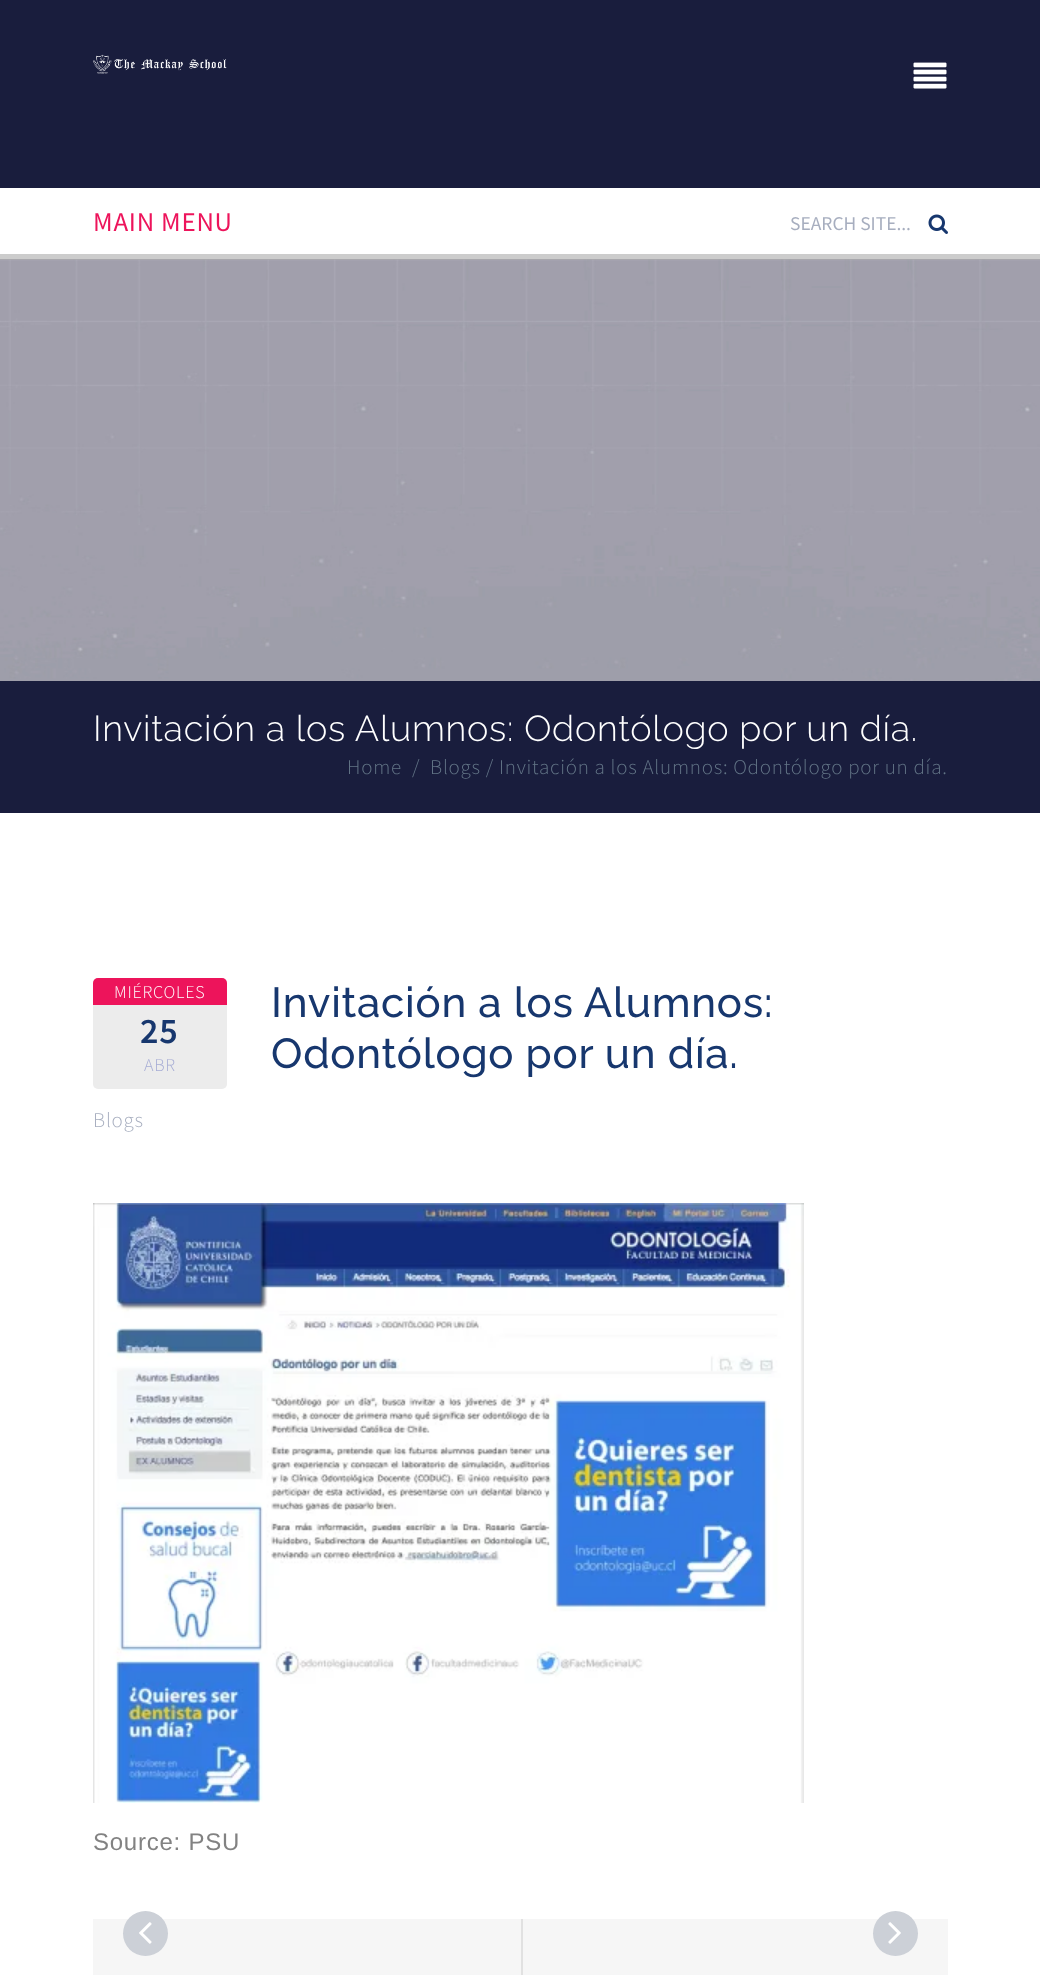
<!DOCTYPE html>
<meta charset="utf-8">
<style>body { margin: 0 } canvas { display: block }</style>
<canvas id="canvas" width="1040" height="1975"></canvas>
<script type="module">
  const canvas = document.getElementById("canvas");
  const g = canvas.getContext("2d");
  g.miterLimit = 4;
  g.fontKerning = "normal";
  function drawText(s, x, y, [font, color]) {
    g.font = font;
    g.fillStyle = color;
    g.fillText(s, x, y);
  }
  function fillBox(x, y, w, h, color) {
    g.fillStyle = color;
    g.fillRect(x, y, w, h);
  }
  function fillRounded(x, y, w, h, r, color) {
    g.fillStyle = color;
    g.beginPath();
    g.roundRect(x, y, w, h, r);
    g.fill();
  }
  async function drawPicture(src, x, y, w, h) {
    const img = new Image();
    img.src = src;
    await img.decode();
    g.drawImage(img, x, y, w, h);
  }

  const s1 = ["27px Source Sans Pro", "#ED145B"];
  const s2 = ["19.5px Source Sans Pro", "#A7AEBF"];
  const s3 = ["300 36px Raleway", "#FFFFFF"];
  const s4 = ["300 21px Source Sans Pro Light", "#637587"];
  const s5 = ["300 18px Source Sans Pro Light", "#FFFFFF"];
  const s6 = ["600 36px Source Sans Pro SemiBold", "#17376E"];
  const s7 = ["300 18px Source Sans Pro Light", "#A7ADD5"];
  const s8 = ["500 42px Raleway", "#17376E"];
  const s9 = ["300 21px Source Sans Pro Light", "#A7AEBF"];
  const s10 = ["24px Liberation Sans", "#828282"];

  fillBox(0, 0, 1040, 1975, "#FFFFFF");
  fillBox(0, 0, 1040, 188, "#191D3D");
  await drawPicture("pic1.png", 93, 54, 134, 20);
  await drawPicture("pic2.png", 913, 62, 34, 27);
  await drawPicture("pic4.png", 0, 259, 1040, 422);
  fillBox(0, 254, 1040, 6, "rgba(0, 0, 0, 0.2)");
  g.letterSpacing = "0.75px";
  drawText("MAIN MENU", 93, 231, s1);
  g.letterSpacing = "0px";
  drawText("SEARCH SITE...", 790, 230, s2);
  await drawPicture("pic3.png", 928, 214, 20, 20);
  fillBox(0, 681, 1040, 132, "#191D3D");
  g.letterSpacing = "0.75px";
  drawText("Invitación a los Alumnos: Odontólogo por un día.", 93, 741, s3);
  drawText("Home", 347, 774, s4);
  drawText("/", 412, 774, s4);
  drawText("Blogs / Invitación a los Alumnos: Odontólogo por un día.", 430, 774, s4);
  fillRounded(93, 978, 134, 111, 5, "#ECECEC");
  g.fillStyle = "#ED145B";
  g.beginPath();
  g.roundRect(93, 978, 134, 27, [5, 5, 0, 0]);
  g.fill();
  drawText("MIÉRCOLES", 114, 998, s5);
  drawText("25", 140, 1043, s6);
  drawText("ABR", 144, 1071, s7);
  drawText("Invitación a los Alumnos:", 271, 1017, s8);
  drawText("Odontólogo por un día.", 271, 1068, s8);
  drawText("Blogs", 93, 1127, s9);
  await drawPicture("pic5.png", 93, 1203, 711, 600);
  drawText("Source: PSU", 93, 1850, s10);
  fillBox(93, 1919, 855, 56, "#F6F6F6");
  g.fillStyle = "#CCD0D7";
  g.beginPath();
  g.arc(145.5, 1933.5, 22.5, 0, Math.PI * 2);
  g.fill();
  await drawPicture("pic6.png", 139, 1922, 13, 22);
  fillBox(521, 1919, 2, 56, "#E1E1E1");
  g.fillStyle = "#CCD0D7";
  g.beginPath();
  g.arc(895.5, 1933.5, 22.5, 0, Math.PI * 2);
  g.fill();
  await drawPicture("pic7.png", 888, 1922, 13, 22);
</script>
